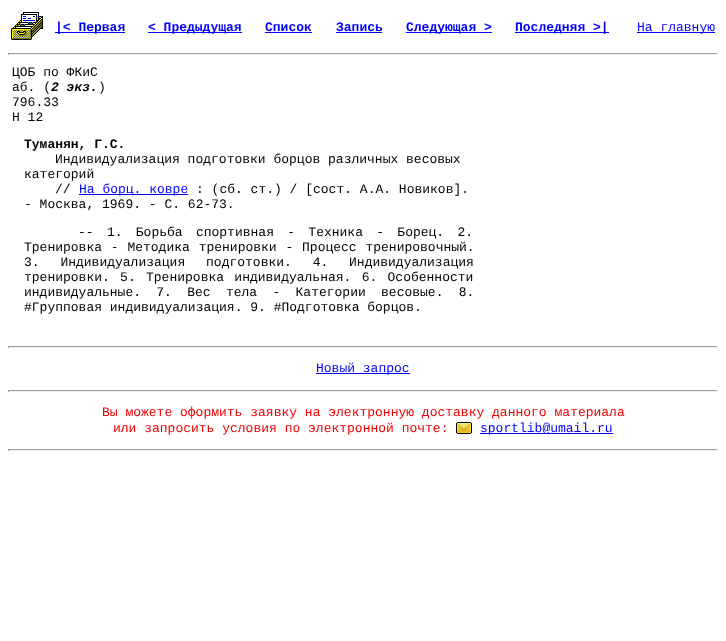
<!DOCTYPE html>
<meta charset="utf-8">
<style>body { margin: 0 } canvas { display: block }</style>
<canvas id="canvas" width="726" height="641"></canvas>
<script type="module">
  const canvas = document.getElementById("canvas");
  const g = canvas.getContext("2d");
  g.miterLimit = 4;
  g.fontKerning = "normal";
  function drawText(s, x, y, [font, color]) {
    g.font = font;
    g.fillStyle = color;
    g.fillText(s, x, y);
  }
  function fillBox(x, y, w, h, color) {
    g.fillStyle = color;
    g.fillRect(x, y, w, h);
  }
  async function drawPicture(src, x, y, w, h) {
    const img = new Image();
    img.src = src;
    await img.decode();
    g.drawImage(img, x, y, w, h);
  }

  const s1 = ["bold 13px Liberation Mono", "#0000FF"];
  const s2 = ["13px Liberation Mono", "#0000FF"];
  const s3 = ["13px Liberation Mono", "#000000"];
  const s4 = ["italic bold 13px Liberation Mono", "#000000"];
  const s5 = ["bold 13px Liberation Mono", "#000000"];
  const s6 = ["13px Liberation Mono", "#F00000"];

  fillBox(0, 0, 726, 641, "#FFFFFF");
  await drawPicture("pic1.png", 11, 12, 32, 28);
  fillBox(55, 32, 70, 1, "#0000FF");
  drawText("|< Первая", 55, 31, s1);
  fillBox(148, 32, 94, 1, "#0000FF");
  drawText("< Предыдущая", 148, 31, s1);
  drawText("Список", 265, 31, s1);
  fillBox(265, 32, 47, 1, "#0000FF");
  drawText("Запись", 336, 31, s1);
  fillBox(336, 32, 46, 1, "#0000FF");
  fillBox(406, 32, 86, 1, "#0000FF");
  drawText("Следующая >", 406, 31, s1);
  fillBox(515, 32, 94, 1, "#0000FF");
  drawText("Последняя >|", 515, 31, s1);
  fillBox(637, 32, 78, 1, "#0000FF");
  drawText("На главную", 637, 31, s2);
  fillBox(8, 53, 710, 1, "#9F9F9F");
  fillBox(717, 53, 1, 2, "#EEEEEE");
  fillBox(8, 54, 710, 1, "#EEEEEE");
  fillBox(8, 53, 1, 2, "#9F9F9F");
  drawText("ЦОБ по ФКиС", 12, 76, s3);
  drawText("аб. (", 12, 91, s3);
  drawText("2 экз.", 51, 91, s4);
  drawText(")", 98, 91, s3);
  drawText("796.33", 12, 106, s3);
  drawText("Н 12", 12, 121, s3);
  drawText("Туманян, Г.С.", 24, 148, s5);
  drawText("Индивидуализация подготовки борцов различных весовых", 55, 163, s3);
  drawText("категорий", 24, 178, s3);
  drawText("//", 55, 193, s3);
  fillBox(79, 194, 109, 1, "#0000FF");
  drawText("На борц. ковре", 79, 193, s2);
  drawText(": (сб. ст.) / [сост. А.А. Новиков].", 196, 193, s3);
  drawText("- Москва, 1969. - С. 62-73.", 24, 208, s3);
  g.wordSpacing = "5.5px";
  drawText("-- 1. Борьба спортивная - Техника - Борец. 2.", 78, 236, s3);
  g.wordSpacing = "1px";
  drawText("Тренировка - Методика тренировки - Процесс тренировочный.", 24, 251, s3);
  g.wordSpacing = "13px";
  drawText("3. Индивидуализация подготовки. 4. Индивидуализация", 24, 266, s3);
  g.wordSpacing = "2.5px";
  drawText("тренировки. 5. Тренировка индивидуальная. 6. Особенности", 24, 281, s3);
  g.wordSpacing = "7.5px";
  drawText("индивидуальные. 7. Вес тела - Категории весовые. 8.", 24, 296, s3);
  g.wordSpacing = "0px";
  drawText("#Групповая индивидуализация. 9. #Подготовка борцов.", 24, 311, s3);
  fillBox(8, 346, 710, 1, "#9F9F9F");
  fillBox(717, 346, 1, 2, "#EEEEEE");
  fillBox(8, 347, 710, 1, "#EEEEEE");
  fillBox(8, 346, 1, 2, "#9F9F9F");
  fillBox(316, 373, 94, 1, "#0000FF");
  drawText("Новый запрос", 316, 372, s2);
  fillBox(8, 390, 710, 1, "#9F9F9F");
  fillBox(717, 390, 1, 2, "#EEEEEE");
  fillBox(8, 391, 710, 1, "#EEEEEE");
  fillBox(8, 390, 1, 2, "#9F9F9F");
  drawText("Вы можете оформить заявку на электронную доставку данного материала", 102, 416, s6);
  drawText("или запросить условия по электронной почте:", 113, 432, s6);
  await drawPicture("pic2.png", 456, 422, 16, 12);
  fillBox(480, 433, 133, 1, "#0000FF");
  drawText("sportlib@umail.ru", 480, 432, s2);
  fillBox(8, 449, 710, 1, "#9F9F9F");
  fillBox(717, 449, 1, 2, "#EEEEEE");
  fillBox(8, 450, 710, 1, "#EEEEEE");
  fillBox(8, 449, 1, 2, "#9F9F9F");
</script>
